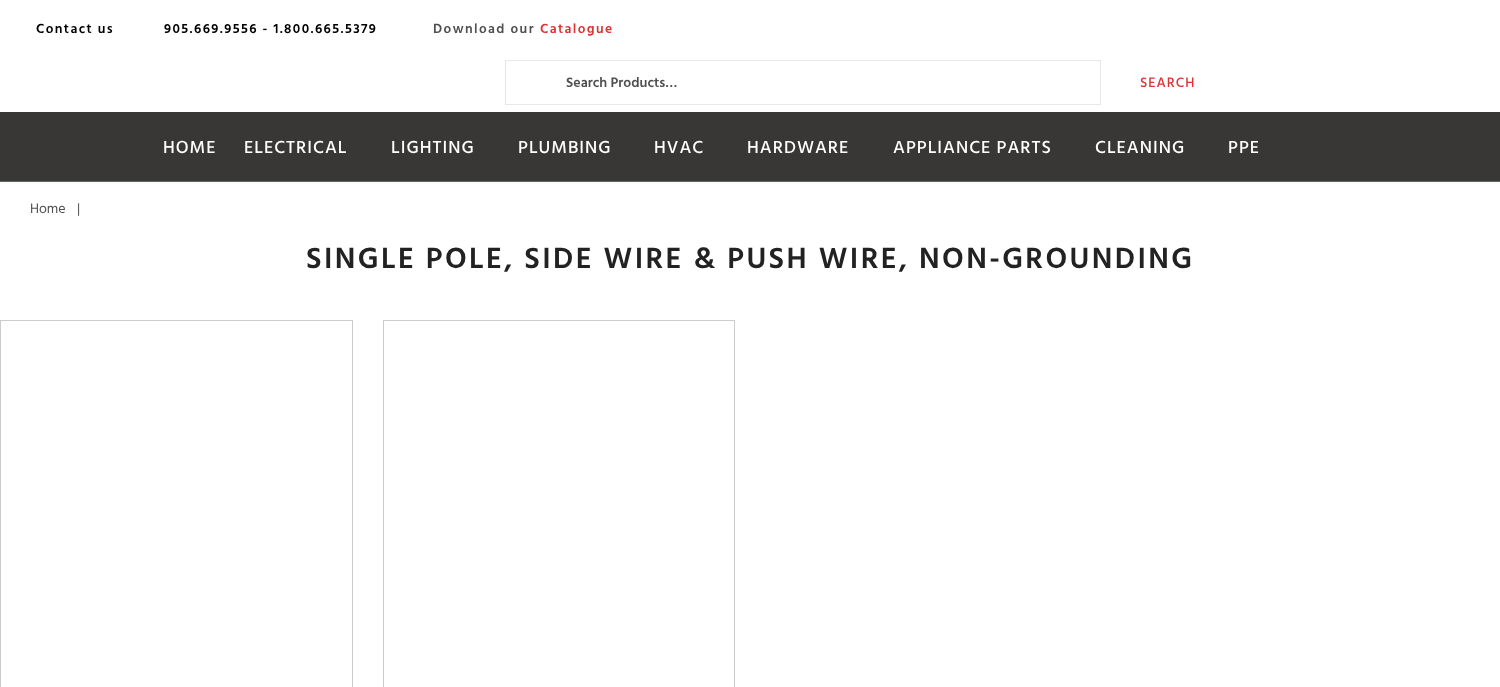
<!DOCTYPE html>
<meta charset="utf-8">
<style>body { margin: 0 } canvas { display: block }</style>
<canvas id="canvas" width="1500" height="687"></canvas>
<script type="module">
  const canvas = document.getElementById("canvas");
  const g = canvas.getContext("2d");
  g.miterLimit = 4;
  g.fontKerning = "normal";
  function drawText(s, x, y, [font, color]) {
    g.font = font;
    g.fillStyle = color;
    g.fillText(s, x, y);
  }
  function fillBox(x, y, w, h, color) {
    g.fillStyle = color;
    g.fillRect(x, y, w, h);
  }

  const s1 = ["600 13.6px Hind Siliguri", "#000000"];
  const s2 = ["600 13.6px Hind Siliguri", "#4F4F4F"];
  const s3 = ["600 13.6px Hind Siliguri", "#DD3333"];
  const s4 = ["600 14px Hind Siliguri", "#4F4F4F"];
  const s5 = ["500 14px Hind Siliguri", "#DD3333"];
  const s6 = ["500 18px Hind Siliguri", "#FFFFFF"];
  const s7 = ["14px Hind Siliguri", "#4F4F4F"];
  const s8 = ["600 30px Hind Siliguri", "#222222"];

  fillBox(0, 0, 1500, 687, "#FFFFFF");
  g.letterSpacing = "1.4px";
  drawText("Contact us", 36, 33, s1);
  drawText("905.669.9556 - 1.800.665.5379", 164, 33, s1);
  drawText("Download our", 433, 33, s2);
  drawText("Catalogue", 540, 33, s3);
  g.strokeStyle = "#E8E8E8";
  g.strokeRect(505.5, 60.5, 595, 44);
  g.letterSpacing = "0px";
  drawText("Search Products…", 566, 87, s4);
  g.letterSpacing = "1px";
  drawText("SEARCH", 1140, 87, s5);
  fillBox(0, 112, 1500, 69, "#393636");
  drawText("HOME", 163, 153, s6);
  drawText("ELECTRICAL", 244, 153, s6);
  drawText("LIGHTING", 391, 153, s6);
  drawText("PLUMBING", 518, 153, s6);
  drawText("HVAC", 654, 153, s6);
  drawText("HARDWARE", 747, 153, s6);
  drawText("APPLIANCE PARTS", 893, 153, s6);
  drawText("CLEANING", 1095, 153, s6);
  drawText("PPE", 1228, 153, s6);
  fillBox(0, 181, 1500, 1, "#DD3333");
  g.letterSpacing = "0px";
  drawText("Home", 30, 213, s7);
  drawText("|", 77, 213, s7);
  g.letterSpacing = "2.4px";
  drawText("SINGLE POLE, SIDE WIRE & PUSH WIRE, NON-GROUNDING", 306, 268, s8);
  g.strokeStyle = "#CCCCCC";
  g.strokeRect(0.5, 320.5, 352, 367);
  g.strokeRect(383.5, 320.5, 351, 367);
</script>
